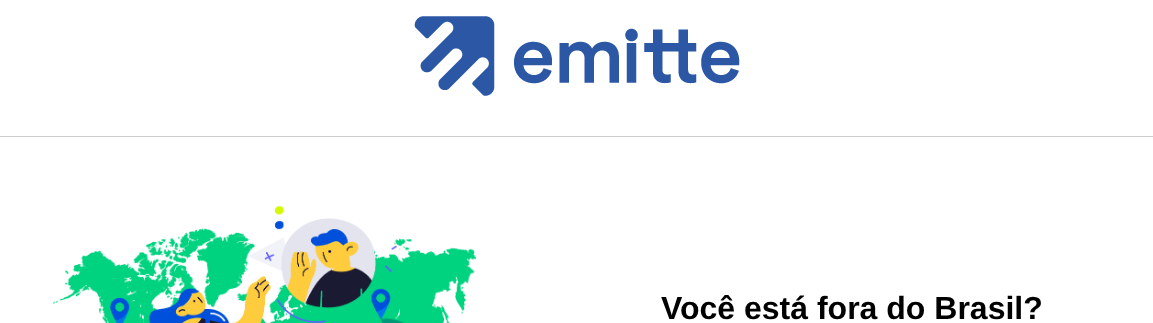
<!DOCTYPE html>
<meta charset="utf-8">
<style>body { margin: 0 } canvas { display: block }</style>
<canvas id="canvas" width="1153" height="323"></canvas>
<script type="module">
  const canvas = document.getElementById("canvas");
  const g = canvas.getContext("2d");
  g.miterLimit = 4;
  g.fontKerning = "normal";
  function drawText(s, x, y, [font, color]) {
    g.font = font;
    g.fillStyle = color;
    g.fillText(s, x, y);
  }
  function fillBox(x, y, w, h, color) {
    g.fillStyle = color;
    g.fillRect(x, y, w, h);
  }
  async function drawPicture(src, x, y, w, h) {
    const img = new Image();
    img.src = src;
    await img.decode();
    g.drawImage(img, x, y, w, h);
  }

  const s1 = ["bold 32px Liberation Sans", "#000000"];

  fillBox(0, 0, 1153, 323, "#FFFFFF");
  await drawPicture("pic1.png", 414, 16, 326, 80);
  fillBox(0, 136, 1153, 1, "#CCCCCC");
  await drawPicture("pic2.png", 53, 206, 423, 117);
  drawText("Você está fora do Brasil?", 661, 319, s1);
</script>
